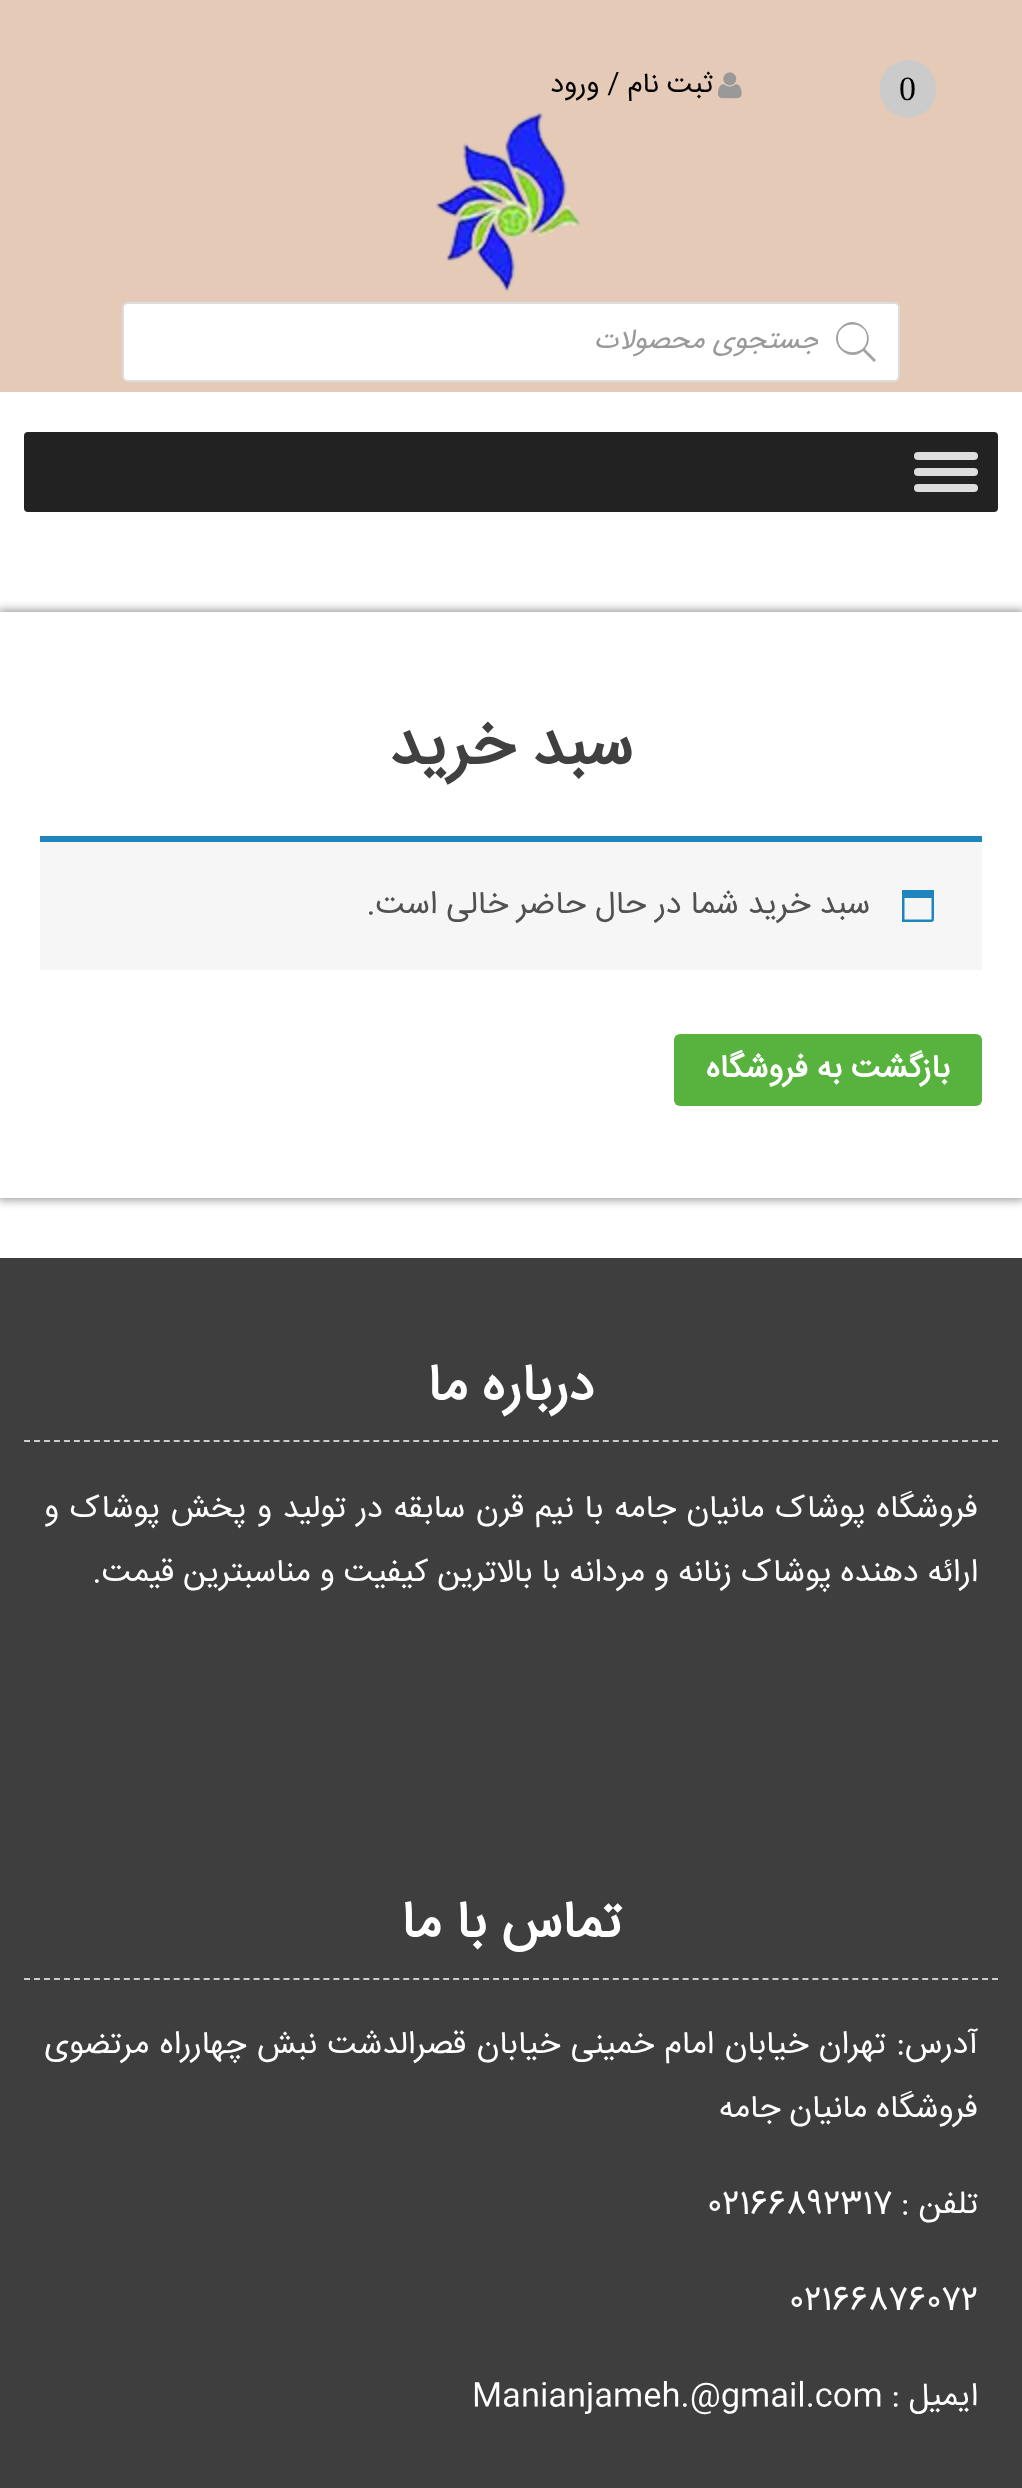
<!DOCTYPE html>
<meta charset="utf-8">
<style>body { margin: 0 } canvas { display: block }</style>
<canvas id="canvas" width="1022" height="2488"></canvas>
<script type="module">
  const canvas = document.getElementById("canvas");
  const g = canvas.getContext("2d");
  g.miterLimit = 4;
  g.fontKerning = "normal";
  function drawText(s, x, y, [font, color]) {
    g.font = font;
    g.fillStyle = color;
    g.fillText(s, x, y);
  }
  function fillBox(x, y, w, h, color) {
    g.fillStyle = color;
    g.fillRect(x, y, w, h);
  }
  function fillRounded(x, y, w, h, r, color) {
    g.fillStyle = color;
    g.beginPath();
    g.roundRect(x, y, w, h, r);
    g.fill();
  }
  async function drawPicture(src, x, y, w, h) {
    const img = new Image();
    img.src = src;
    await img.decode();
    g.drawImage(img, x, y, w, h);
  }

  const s1 = ["34px Liberation Serif", "#000000"];
  const s2 = ["28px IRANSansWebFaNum", "#000000"];
  const s3 = ["italic 28px IRANSansWebFaNum", "#999999"];
  const s4 = ["bold 64px IRANSansWebFaNum", "#404040"];
  const s5 = ["32px IRANSansWebFaNum", "#515151"];
  const s6 = ["bold 32px IRANSansWebFaNum", "#FFFFFF"];
  const s7 = ["bold 52px IRANSansWebFaNum", "#FFFFFF"];
  const s8 = ["32px IRANSansWebFaNum", "#FFFFFF"];

  fillBox(0, 0, 1022, 2488, "#FFFFFF");
  fillBox(0, 0, 1022, 392, "#E5CAB7");
  fillRounded(880, 60, 56, 58, 28, "#CBCBCB");
  drawText("0", 899, 100, s1);
  await drawPicture("pic1.png", 718, 72, 24, 27);
  g.direction = "rtl";
  drawText("ثبت نام / ورود", 713, 92, s2);
  await drawPicture("pic2.png", 434, 112, 148, 180);
  g.fillStyle = "#FFFFFF";
  g.beginPath();
  g.roundRect(123, 303, 776, 78, 5);
  g.fill();
  g.strokeStyle = "#DDDDDD";
  g.lineWidth = 2;
  g.stroke();
  g.fillStyle = "#A2A2A2";
  g.beginPath();
  g.moveTo(876, 360);
  g.lineTo(865, 349);
  g.bezierCurveTo(878, 334, 856, 312, 841, 327);
  g.bezierCurveTo(826, 342, 848, 364, 863, 351);
  g.lineTo(874, 362);
  g.closePath();
  g.moveTo(838, 338);
  g.bezierCurveTo(838, 320, 867, 320, 867, 338);
  g.bezierCurveTo(867, 357, 838, 357, 838, 338);
  g.closePath();
  g.fill();
  g.save();
  g.beginPath();
  g.rect(154, 318, 664, 48);
  g.clip();
  drawText("جستجوی محصولات", 819, 348, s3);
  g.restore();
  fillRounded(24, 432, 974, 80, 4, "#222222");
  fillRounded(914, 452, 64, 8, 4, "#DDDDDD");
  fillRounded(914, 468, 64, 8, 4, "#DDDDDD");
  fillRounded(914, 484, 64, 8, 4, "#DDDDDD");
  g.save();
  g.beginPath();
  g.moveTo(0, 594);
  g.lineTo(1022, 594);
  g.lineTo(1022, 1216);
  g.lineTo(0, 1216);
  g.closePath();
  g.moveTo(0, 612);
  g.lineTo(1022, 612);
  g.lineTo(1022, 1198);
  g.lineTo(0, 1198);
  g.closePath();
  g.clip("evenodd");
  g.fillStyle = "#999999";
  g.filter = "blur(5px)";
  g.beginPath();
  g.rect(-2, 610, 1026, 590);
  g.fill();
  g.filter = "none";
  g.restore();
  drawText("سبد خرید", 633, 764, s4);
  fillBox(40, 842, 942, 128, "#F7F6F7");
  fillBox(40, 836, 942, 6, "#1E85BE");
  g.beginPath();
  g.moveTo(931.5, 898);
  g.lineTo(904.5, 898);
  g.lineTo(904.5, 919.5);
  g.lineTo(931.5, 919.5);
  g.closePath();
  g.moveTo(934, 890);
  g.lineTo(934, 914.5);
  g.bezierCurveTo(934, 922.5, 934.5, 922, 926.5, 922);
  g.lineTo(902, 922);
  g.lineTo(902, 890);
  g.closePath();
  g.fill();
  drawText("سبد خرید شما در حال حاضر خالی است.", 870, 913, s5);
  fillRounded(674, 1034, 308, 72, 6, "#58B23E");
  drawText("بازگشت به فروشگاه", 950, 1077, s6);
  fillBox(0, 1258, 1022, 1230, "#3E3E3E");
  g.beginPath();
  g.moveTo(24, 1441);
  g.lineTo(998, 1441);
  g.strokeStyle = "#CCCCCC";
  g.setLineDash([6, 3.98]);
  g.stroke();
  drawText("درباره ما", 594, 1400, s7);
  g.wordSpacing = "1.75px";
  drawText("فروشگاه پوشاک مانیان جامه با نیم قرن سابقه در تولید و پخش پوشاک و", 978, 1517, s8);
  g.wordSpacing = "0px";
  drawText("ارائه دهنده پوشاک زنانه و مردانه با بالاترین کیفیت و مناسبترین قیمت.", 978, 1581, s8);
  g.beginPath();
  g.moveTo(24, 1979);
  g.lineTo(998, 1979);
  g.stroke();
  drawText("تماس با ما", 621, 1937, s7);
  g.wordSpacing = "1.6px";
  drawText("آدرس: تهران خیابان امام خمینی خیابان قصرالدشت نبش چهارراه مرتضوی", 978, 2053, s8);
  g.wordSpacing = "0px";
  drawText("فروشگاه مانیان جامه", 978, 2117, s8);
  drawText("تلفن :", 978, 2213, s8);
  g.direction = "ltr";
  drawText("02166892317", 707, 2213, s8);
  drawText("02166876072", 789, 2309, s8);
  g.direction = "rtl";
  drawText("ایمیل :", 978, 2405, s8);
  g.direction = "ltr";
  drawText("Manianjameh.@gmail.com", 472, 2405, s8);
</script>
